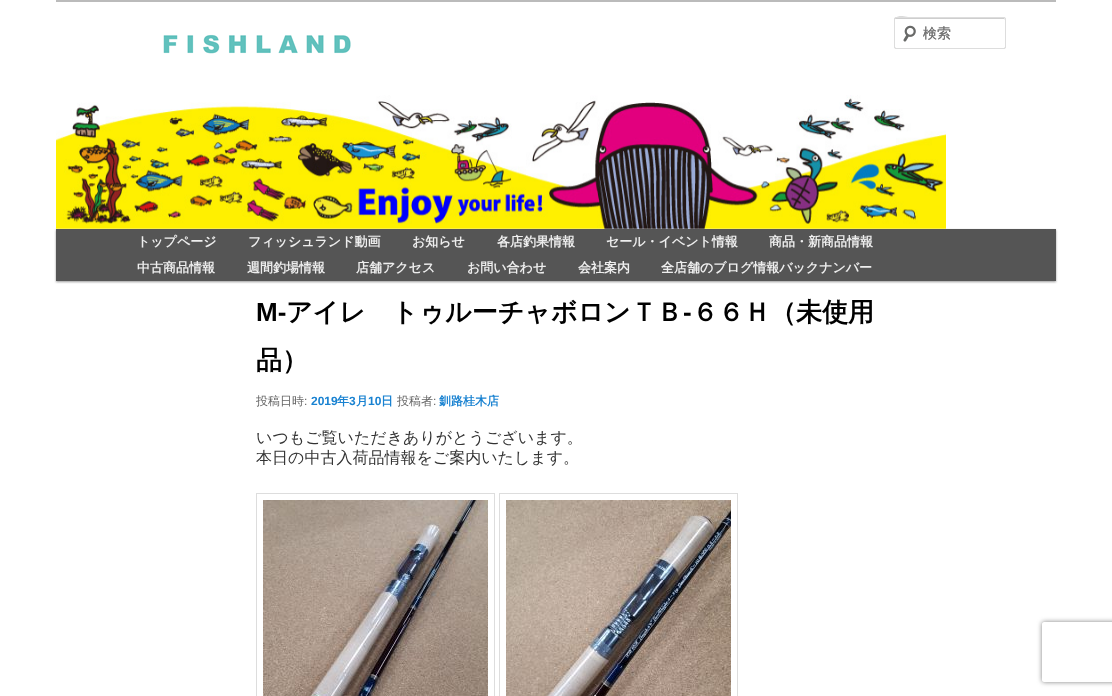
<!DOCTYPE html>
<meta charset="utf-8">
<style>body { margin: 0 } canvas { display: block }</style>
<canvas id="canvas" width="1112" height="696"></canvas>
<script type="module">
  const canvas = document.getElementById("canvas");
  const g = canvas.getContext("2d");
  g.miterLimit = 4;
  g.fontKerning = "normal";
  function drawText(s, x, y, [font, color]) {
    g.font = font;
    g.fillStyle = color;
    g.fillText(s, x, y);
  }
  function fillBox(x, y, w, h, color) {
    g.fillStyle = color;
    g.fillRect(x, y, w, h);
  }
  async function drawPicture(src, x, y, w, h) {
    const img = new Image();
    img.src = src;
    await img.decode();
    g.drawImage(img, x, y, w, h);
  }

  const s1 = ["500 14px WenQuanYi Zen Hei", "#757575"];
  const s2 = ["bold 13px WenQuanYi Zen Hei", "#EEEEEE"];
  const s3 = ["bold 26px Liberation Sans", "#000000"];
  const s4 = ["bold 26px WenQuanYi Zen Hei", "#000000"];
  const s5 = ["500 12px WenQuanYi Zen Hei", "#666666"];
  const s6 = ["12px Liberation Sans", "#666666"];
  const s7 = ["bold 12px Liberation Sans", "#1982D1"];
  const s8 = ["bold 12px WenQuanYi Zen Hei", "#1982D1"];
  const s9 = ["500 16px WenQuanYi Zen Hei", "#333333"];

  fillBox(0, 0, 1112, 696, "#FFFFFF");
  fillBox(56, 0, 1000, 2, "#BBBBBB");
  g.fillStyle = "rgba(0, 0, 0, 0.4)";
  g.filter = "blur(1px)";
  g.beginPath();
  g.rect(56, 230, 1000, 52);
  g.fill();
  g.filter = "none";
  fillBox(56, 229, 1000, 52, "#555555");
  await drawPicture("pic3.png", 903, 25, 13, 17);
  g.fillStyle = "#E6E6E6";
  g.beginPath();
  g.moveTo(896, 19);
  g.lineTo(1005, 19);
  g.lineTo(1005, 20);
  g.lineTo(1004, 18);
  g.lineTo(914, 18);
  g.bezierCurveTo(910, 18, 895, 13, 895, 20);
  g.bezierCurveTo(895, 19, 895, 19, 896, 19);
  g.closePath();
  g.fill();
  g.beginPath();
  g.roundRect(894.5, 17.5, 111, 31, 1.5);
  g.strokeStyle = "#DDDDDD";
  g.stroke();
  await drawPicture("pic1.png", 903, 25, 13, 17);
  g.fillStyle = "rgba(0, 0, 0, 0.1)";
  g.beginPath();
  g.moveTo(896, 19);
  g.lineTo(1005, 19);
  g.lineTo(1005, 20);
  g.lineTo(1004, 18);
  g.lineTo(914, 18);
  g.bezierCurveTo(910, 18, 895, 13, 895, 20);
  g.bezierCurveTo(895, 19, 895, 19, 896, 19);
  g.closePath();
  g.fill();
  g.beginPath();
  g.roundRect(894.5, 17.5, 111, 31, 1.5);
  g.stroke();
  drawText("検索", 923, 38, s1);
  drawText("検索", 923, 38, s1);
  drawText("トップページ", 137, 246, s2);
  drawText("フィッシュランド動画", 248, 246, s2);
  drawText("お知らせ", 412, 246, s2);
  drawText("各店釣果情報", 497, 246, s2);
  drawText("セール・イベント情報", 606, 246, s2);
  drawText("商品・新商品情報", 769, 246, s2);
  drawText("中古商品情報", 137, 272, s2);
  drawText("週間釣場情報", 247, 272, s2);
  drawText("店舗アクセス", 356, 272, s2);
  drawText("お問い合わせ", 467, 272, s2);
  drawText("会社案内", 578, 272, s2);
  drawText("全店舗のブログ情報バックナンバー", 661, 272, s2);
  await drawPicture("pic2.png", 163, 34, 188, 20);
  await drawPicture("pic4.png", 56, 95, 890, 134);
  fillBox(56, 228, 890, 1, "rgba(255, 255, 255, 0.05)");
  drawText("M-", 256, 321, s3);
  drawText("アイレ　トゥルーチャボロンＴＢ", 286, 321, s4);
  drawText("-", 683, 321, s3);
  drawText("６６Ｈ（未使用", 692, 321, s4);
  drawText("品）", 256, 369, s4);
  drawText("投稿日時", 256, 405, s5);
  drawText(":", 304, 405, s6);
  drawText("2019", 311, 405, s7);
  drawText("年", 337, 405, s8);
  drawText("3", 349, 405, s7);
  drawText("月", 356, 405, s8);
  drawText("10", 368, 405, s7);
  drawText("日", 381, 405, s8);
  drawText("投稿者", 397, 405, s5);
  drawText(":", 433, 405, s6);
  drawText("釧路桂木店", 439, 405, s8);
  drawText("いつもご覧いただきありがとうございます。", 256, 443, s9);
  drawText("本日の中古入荷品情報をご案内いたします。", 256, 463, s9);
  g.strokeRect(256.5, 493.5, 238, 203);
  g.strokeRect(499.5, 493.5, 238, 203);
  await drawPicture("pic5.png", 263, 500, 225, 196);
  await drawPicture("pic6.png", 506, 500, 225, 196);
  g.save();
  g.beginPath();
  g.moveTo(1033, 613);
  g.lineTo(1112, 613);
  g.lineTo(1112, 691);
  g.lineTo(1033, 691);
  g.closePath();
  g.moveTo(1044, 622);
  g.lineTo(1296, 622);
  g.bezierCurveTo(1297, 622, 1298, 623, 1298, 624);
  g.lineTo(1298, 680);
  g.bezierCurveTo(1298, 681, 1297, 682, 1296, 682);
  g.lineTo(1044, 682);
  g.bezierCurveTo(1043, 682, 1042, 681, 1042, 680);
  g.lineTo(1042, 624);
  g.bezierCurveTo(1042, 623, 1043, 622, 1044, 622);
  g.closePath();
  g.clip("evenodd");
  g.fillStyle = "#808080";
  g.filter = "blur(2.5px)";
  g.beginPath();
  g.roundRect(1042, 622, 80, 60, 2);
  g.fill();
  g.filter = "none";
  g.restore();
</script>
